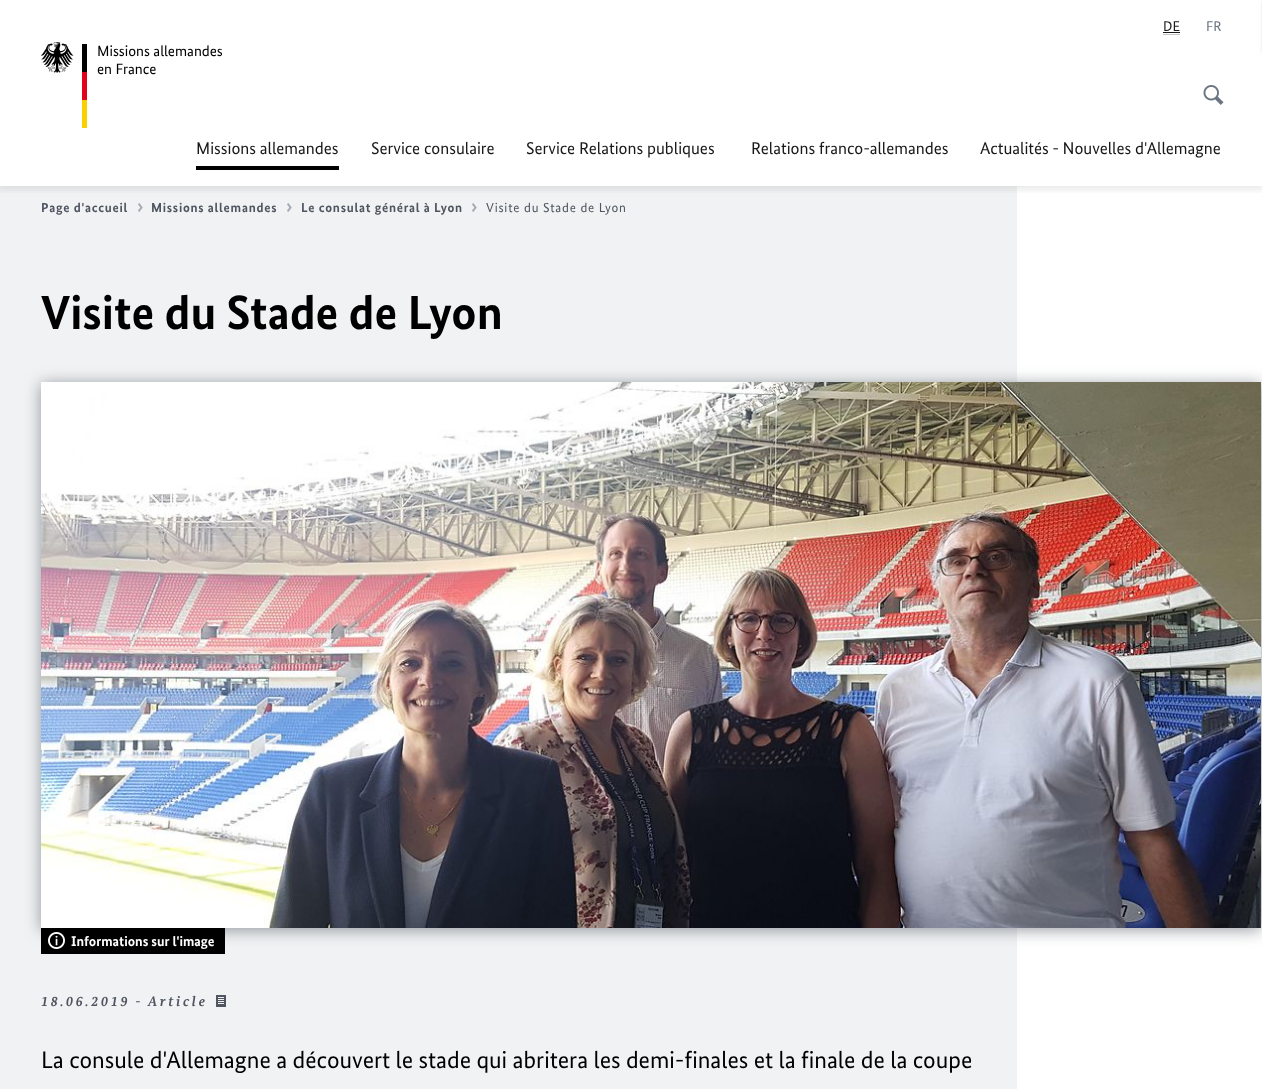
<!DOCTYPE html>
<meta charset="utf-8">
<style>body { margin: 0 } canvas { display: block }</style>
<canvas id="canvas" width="1262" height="1089"></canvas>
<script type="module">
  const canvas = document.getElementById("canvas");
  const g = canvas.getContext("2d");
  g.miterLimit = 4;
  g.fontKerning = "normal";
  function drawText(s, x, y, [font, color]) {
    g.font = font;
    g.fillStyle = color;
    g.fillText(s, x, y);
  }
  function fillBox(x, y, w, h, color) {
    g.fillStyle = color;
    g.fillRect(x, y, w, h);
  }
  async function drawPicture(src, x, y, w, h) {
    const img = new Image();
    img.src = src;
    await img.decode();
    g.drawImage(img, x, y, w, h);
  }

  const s1 = ["15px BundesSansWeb", "#000000"];
  const s2 = ["14px BundesSansWeb", "#191919"];
  const s3 = ["14px BundesSansWeb", "#6B7581"];
  const s4 = ["17px BundesSansWeb", "#191919"];
  const s5 = ["bold 13px BundesSansWeb", "#4F5661"];
  const s6 = ["13px BundesSansWeb", "#4F5661"];
  const s7 = ["bold 48px BundesSansWeb", "#000000"];
  const s8 = ["bold 14px BundesSansWeb", "#FFFFFF"];
  const s9 = ["italic bold 14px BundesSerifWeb", "#4F5661"];
  const s10 = ["24px BundesSansWeb", "#000000"];

  fillBox(0, 0, 1262, 1089, "#FFFFFF");
  fillBox(0, 186, 1017, 903, "#F1F2F3");
  g.save();
  g.beginPath();
  g.rect(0, 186, 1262, 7);
  g.clip();
  g.fillStyle = "rgba(0, 0, 0, 0.1)";
  g.filter = "blur(4.5px)";
  g.beginPath();
  g.rect(-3, -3, 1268, 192);
  g.fill();
  g.filter = "none";
  g.restore();
  await drawPicture("pic1.png", 41, 42, 46, 86);
  drawText("Missions allemandes", 97, 56, s1);
  drawText("en France", 97, 74, s1);
  drawText("DE", 1163, 31, s2);
  fillBox(1163, 32, 17, 1, "#191919");
  fillBox(1163, 34, 17, 1, "#C6C6C6");
  drawText("FR", 1206, 31, s3);
  await drawPicture("pic2.png", 1203, 85, 21, 20);
  drawText("Missions allemandes", 196, 154, s4);
  fillBox(196, 166, 143, 4, "#000000");
  drawText("Service consulaire", 371, 154, s4);
  drawText("Service Relations publiques", 526, 154, s4);
  drawText("Relations franco-allemandes", 751, 154, s4);
  drawText("Actualités - Nouvelles d'Allemagne", 980, 154, s4);
  g.fillStyle = "#E0E2E4";
  g.filter = "blur(1.5px)";
  g.beginPath();
  g.rect(1262, 1, 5, 52);
  g.fill();
  g.filter = "none";
  g.letterSpacing = "0.75px";
  drawText("Page d'accueil", 41, 212, s5);
  await drawPicture("pic3.png", 138, 203, 5, 9);
  drawText("Missions allemandes", 151, 212, s5);
  await drawPicture("pic3.png", 287, 203, 5, 9);
  drawText("Le consulat général à Lyon", 301, 212, s5);
  await drawPicture("pic3.png", 472, 203, 5, 9);
  g.letterSpacing = "0.8px";
  drawText("Visite du Stade de Lyon", 486, 212, s6);
  g.letterSpacing = "0px";
  drawText("Visite du Stade de Lyon", 41, 329, s7);
  g.fillStyle = "rgba(79, 86, 97, 0.6)";
  g.filter = "blur(8px)";
  g.beginPath();
  g.rect(41, 384, 1220, 546);
  g.fill();
  g.filter = "none";
  await drawPicture("pic4.png", 41, 382, 1220, 546);
  fillBox(41, 928, 184, 26, "#000000");
  await drawPicture("pic5.png", 48, 932, 17, 17);
  drawText("Informations sur l'image", 71, 946, s8);
  g.letterSpacing = "2.75px";
  drawText("18.06.2019 - Article", 41, 1006, s9);
  await drawPicture("pic6.png", 216, 995, 10, 12);
  g.letterSpacing = "0px";
  drawText("La consule d'Allemagne a découvert le stade qui abritera les demi-finales et la finale de la coupe", 41, 1068, s10);
</script>
